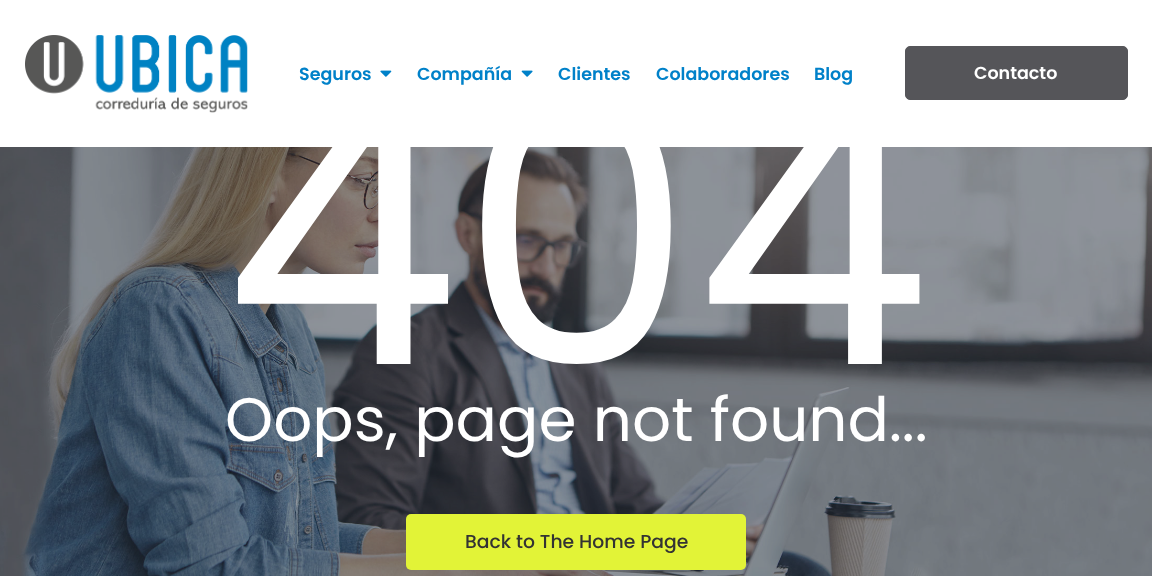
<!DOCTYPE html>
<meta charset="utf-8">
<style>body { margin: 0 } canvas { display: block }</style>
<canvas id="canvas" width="1152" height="576"></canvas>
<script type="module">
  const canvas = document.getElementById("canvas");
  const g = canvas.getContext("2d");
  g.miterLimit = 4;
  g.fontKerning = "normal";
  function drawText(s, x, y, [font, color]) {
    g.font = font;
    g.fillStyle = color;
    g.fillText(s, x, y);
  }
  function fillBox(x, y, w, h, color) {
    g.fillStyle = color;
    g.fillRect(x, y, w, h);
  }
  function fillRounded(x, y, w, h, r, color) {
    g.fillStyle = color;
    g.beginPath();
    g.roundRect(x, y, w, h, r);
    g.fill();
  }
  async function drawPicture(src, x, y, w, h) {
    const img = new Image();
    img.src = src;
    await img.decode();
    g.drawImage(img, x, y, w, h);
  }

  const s1 = ["375px Poppins", "#FFFFFF"];
  const s2 = ["600 17.5px Poppins", "#0081C9"];
  const s3 = ["600 17.5px Poppins", "#FFFFFF"];
  const s4 = ["61.25px Poppins", "#FFFFFF"];
  const s5 = ["500 18.75px Poppins", "#333333"];

  fillBox(0, 0, 1152, 576, "#FFFFFF");
  await drawPicture("pic4.png", 0, 147, 1152, 429);
  drawText("404", 223, 364, s1);
  await drawPicture("pic1.png", 25, 35, 223, 78);
  drawText("Seguros", 299, 80, s2);
  await drawPicture("pic2.png", 380, 70, 12, 7);
  drawText("Compañía", 417, 80, s2);
  await drawPicture("pic3.png", 521, 70, 12, 7);
  drawText("Clientes", 558, 80, s2);
  drawText("Colaboradores", 656, 80, s2);
  drawText("Blog", 814, 80, s2);
  g.fillStyle = "#555559";
  g.beginPath();
  g.roundRect(905.5, 46.5, 222, 53, 4.5);
  g.fill();
  g.strokeStyle = "#555559";
  g.stroke();
  drawText("Contacto", 974, 79, s3);
  drawText("Oops, page not found...", 225, 441, s4);
  fillRounded(406, 514, 340, 56, 5, "#E2F337");
  drawText("Back to The Home Page", 465, 548, s5);
</script>
